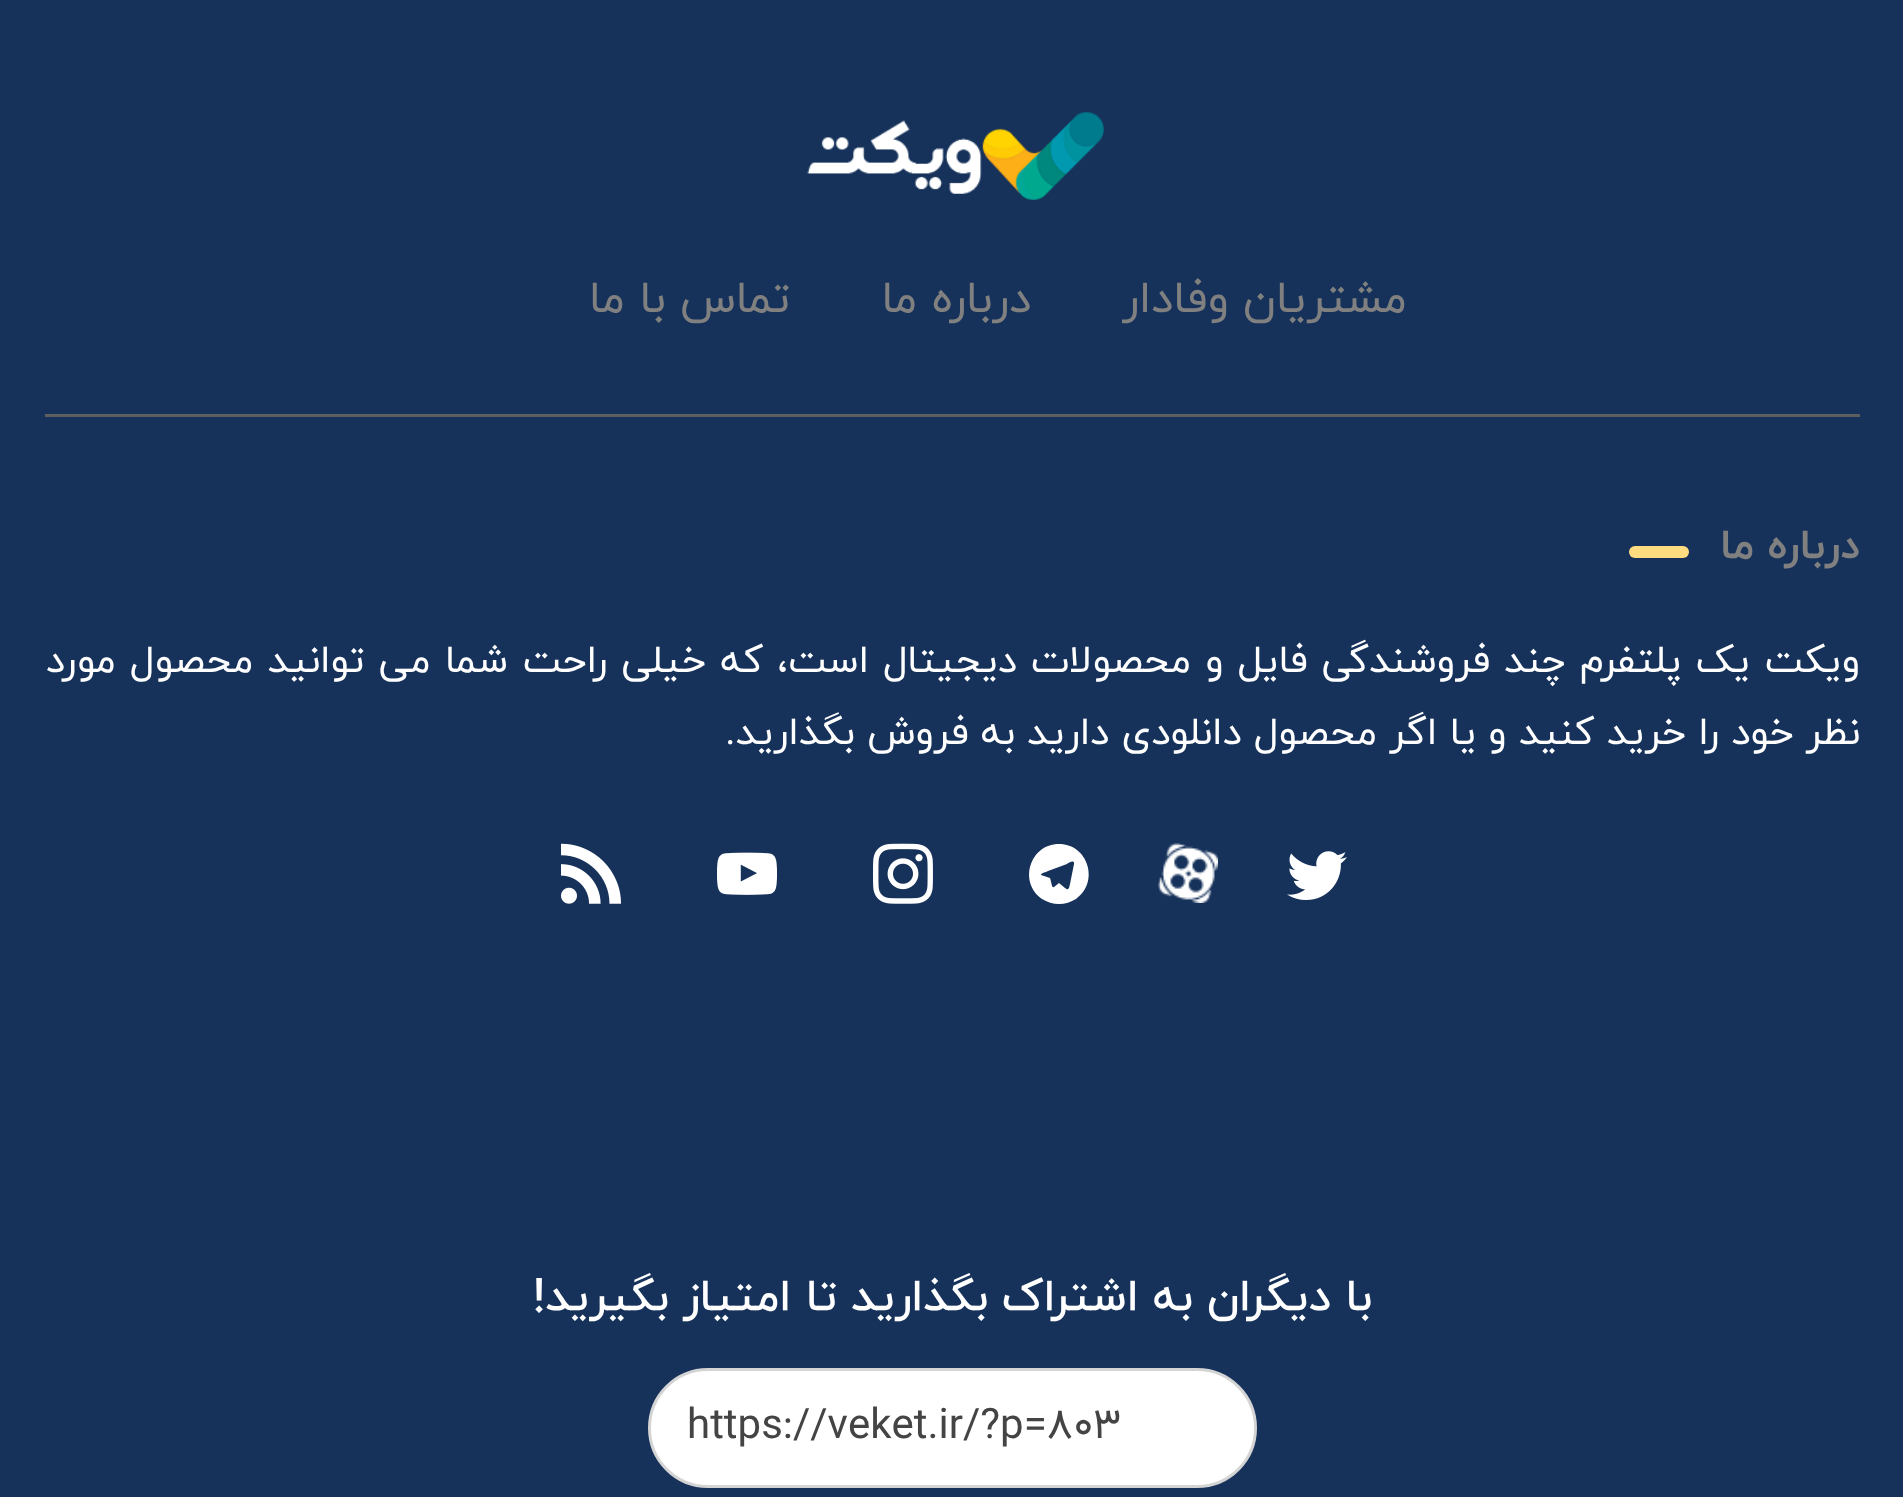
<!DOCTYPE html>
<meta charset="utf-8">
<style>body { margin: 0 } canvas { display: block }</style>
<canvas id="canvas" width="1903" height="1497"></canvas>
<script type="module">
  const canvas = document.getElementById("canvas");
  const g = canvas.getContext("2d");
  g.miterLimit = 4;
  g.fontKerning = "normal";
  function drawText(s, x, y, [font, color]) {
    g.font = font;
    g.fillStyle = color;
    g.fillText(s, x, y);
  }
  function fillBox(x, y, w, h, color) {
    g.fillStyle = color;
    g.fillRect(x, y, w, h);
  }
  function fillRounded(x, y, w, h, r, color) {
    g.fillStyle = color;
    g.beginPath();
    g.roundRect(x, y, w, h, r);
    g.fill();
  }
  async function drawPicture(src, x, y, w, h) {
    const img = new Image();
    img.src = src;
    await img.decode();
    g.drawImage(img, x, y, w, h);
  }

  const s1 = ["45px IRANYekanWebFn", "#808080"];
  const s2 = ["bold 42px IRANYekanWebFn", "#808080"];
  const s3 = ["39px IRANYekanWebFn", "#FFFFFF"];
  const s4 = ["500 45px IRANYekanWebFn", "#FFFFFF"];
  const s5 = ["42px IRANYekanWebFn", "#444444"];

  fillBox(0, 0, 1903, 1497, "#16325A");
  await drawPicture("pic1.png", 807, 112, 297, 88);
  g.direction = "rtl";
  drawText("مشتریان وفادار", 1407, 312, s1);
  drawText("درباره ما", 1031, 312, s1);
  drawText("تماس با ما", 790, 312, s1);
  fillBox(45, 414, 1815, 3, "#5E5E5E");
  drawText("درباره ما", 1860, 558, s2);
  fillRounded(1629, 546, 60, 12, 6, "#FFDC80");
  g.wordSpacing = "2px";
  drawText("ویکت یک پلتفرم چند فروشندگی فایل و محصولات دیجیتال است، که خیلی راحت شما می توانید محصول مورد", 1860, 672, s3);
  g.wordSpacing = "0px";
  drawText("نظر خود را خرید کنید و یا اگر محصول دانلودی دارید به فروش بگذارید.", 1860, 744, s3);
  await drawPicture("pic2.png", 1287, 851, 60, 49);
  await drawPicture("pic3.png", 1158, 843, 60, 60);
  g.beginPath();
  g.moveTo(1059, 844);
  g.bezierCurveTo(1030, 844, 1018, 882, 1042, 899);
  g.bezierCurveTo(1047, 902, 1053, 904, 1059, 904);
  g.bezierCurveTo(1065, 904, 1071, 902, 1076, 899);
  g.bezierCurveTo(1100, 882, 1088, 844, 1059, 844);
  g.closePath();
  g.moveTo(1074, 864);
  g.lineTo(1070, 884);
  g.bezierCurveTo(1069, 888, 1069, 891, 1065, 888);
  g.lineTo(1059, 883);
  g.bezierCurveTo(1051, 890, 1053, 888, 1050, 878);
  g.lineTo(1041, 875);
  g.bezierCurveTo(1041, 873, 1044, 873, 1048, 871);
  g.lineTo(1067, 864);
  g.bezierCurveTo(1068, 863, 1075, 859, 1074, 864);
  g.closePath();
  g.fill();
  await drawPicture("pic4.png", 873, 843, 60, 61);
  await drawPicture("pic5.png", 717, 852, 60, 43);
  await drawPicture("pic6.png", 561, 843, 60, 61);
  drawText("با دیگران به اشتراک بگذارید تا امتیاز بگیرید!", 1372, 1310, s4);
  g.beginPath();
  g.roundRect(649.5, 1369.5, 606, 117, 58.5);
  g.fill();
  g.strokeStyle = "#D4D4D4";
  g.lineWidth = 3;
  g.stroke();
  g.direction = "ltr";
  drawText("https://veket.ir/?p=803", 687, 1438, s5);
</script>
